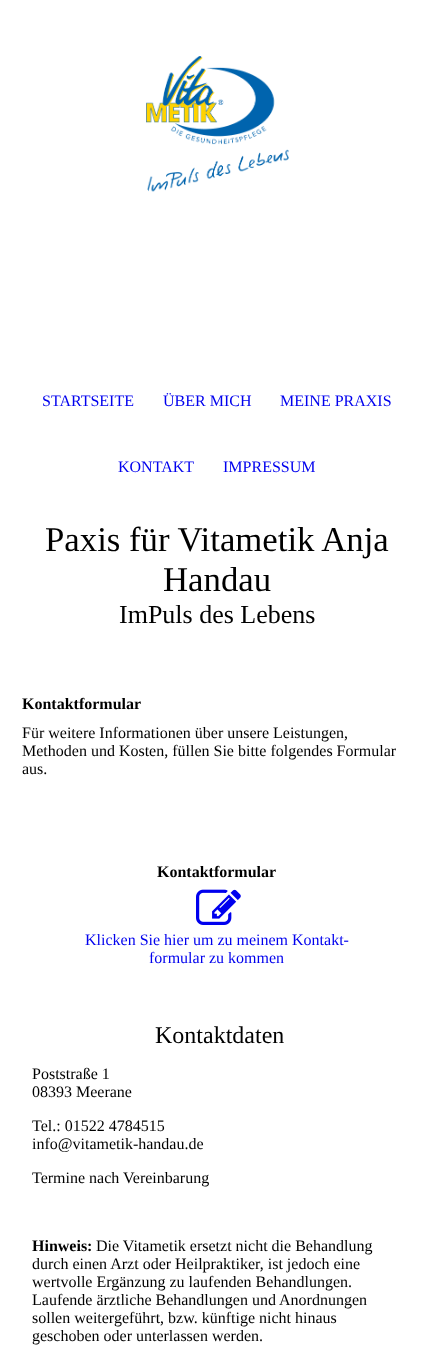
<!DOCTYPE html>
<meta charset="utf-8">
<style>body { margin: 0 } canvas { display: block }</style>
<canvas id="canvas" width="434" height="1365"></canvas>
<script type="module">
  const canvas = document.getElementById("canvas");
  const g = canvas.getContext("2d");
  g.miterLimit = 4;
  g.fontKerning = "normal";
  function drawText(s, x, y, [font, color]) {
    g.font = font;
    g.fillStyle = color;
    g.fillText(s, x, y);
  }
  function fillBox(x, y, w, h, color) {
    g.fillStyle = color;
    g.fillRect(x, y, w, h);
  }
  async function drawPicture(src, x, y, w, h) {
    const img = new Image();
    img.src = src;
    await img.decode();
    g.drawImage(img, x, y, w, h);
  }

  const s1 = ["16px Liberation Serif", "#0000EE"];
  const s2 = ["34.75px Liberation Serif", "#000000"];
  const s3 = ["26px Liberation Serif", "#000000"];
  const s4 = ["bold 16px Liberation Serif", "#000000"];
  const s5 = ["16px Liberation Serif", "#000000"];
  const s6 = ["24px Liberation Serif", "#000000"];

  fillBox(0, 0, 434, 1365, "#FFFFFF");
  await drawPicture("pic1.png", 146, 56, 143, 136);
  drawText("STARTSEITE", 42, 406, s1);
  drawText("ÜBER MICH", 163, 406, s1);
  drawText("MEINE PRAXIS", 280, 406, s1);
  drawText("KONTAKT", 118, 472, s1);
  drawText("IMPRESSUM", 223, 472, s1);
  drawText("Paxis für Vitametik Anja", 45, 551, s2);
  drawText("Handau", 163, 591, s2);
  drawText("ImPuls des Lebens", 119, 623, s3);
  drawText("Kontaktformular", 22, 709, s4);
  drawText("Für weitere Informationen über unsere Leistungen,", 22, 738, s5);
  drawText("Methoden und Kosten, füllen Sie bitte folgendes Formular", 22, 756, s5);
  drawText("aus.", 22, 774, s5);
  drawText("Kontaktformular", 157, 877, s4);
  await drawPicture("pic2.png", 196, 889, 45, 36);
  drawText("Klicken Sie hier um zu meinem Kontakt-", 85, 945, s1);
  drawText("formular zu kommen", 149, 963, s1);
  drawText("Kontaktdaten", 155, 1043, s6);
  drawText("Poststraße 1", 32, 1079, s5);
  drawText("08393 Meerane", 32, 1097, s5);
  drawText("Tel.: 01522 4784515", 32, 1131, s5);
  drawText("info@vitametik-handau.de", 32, 1149, s5);
  drawText("Termine nach Vereinbarung", 32, 1183, s5);
  drawText("Hinweis:", 32, 1251, s4);
  drawText("Die Vitametik ersetzt nicht die Behandlung", 96, 1251, s5);
  drawText("durch einen Arzt oder Heilpraktiker, ist jedoch eine", 32, 1269, s5);
  drawText("wertvolle Ergänzung zu laufenden Behandlungen.", 32, 1287, s5);
  drawText("Laufende ärztliche Behandlungen und Anordnungen", 32, 1305, s5);
  drawText("sollen weitergeführt, bzw. künftige nicht hinaus", 32, 1323, s5);
  drawText("geschoben oder unterlassen werden.", 32, 1341, s5);
</script>
